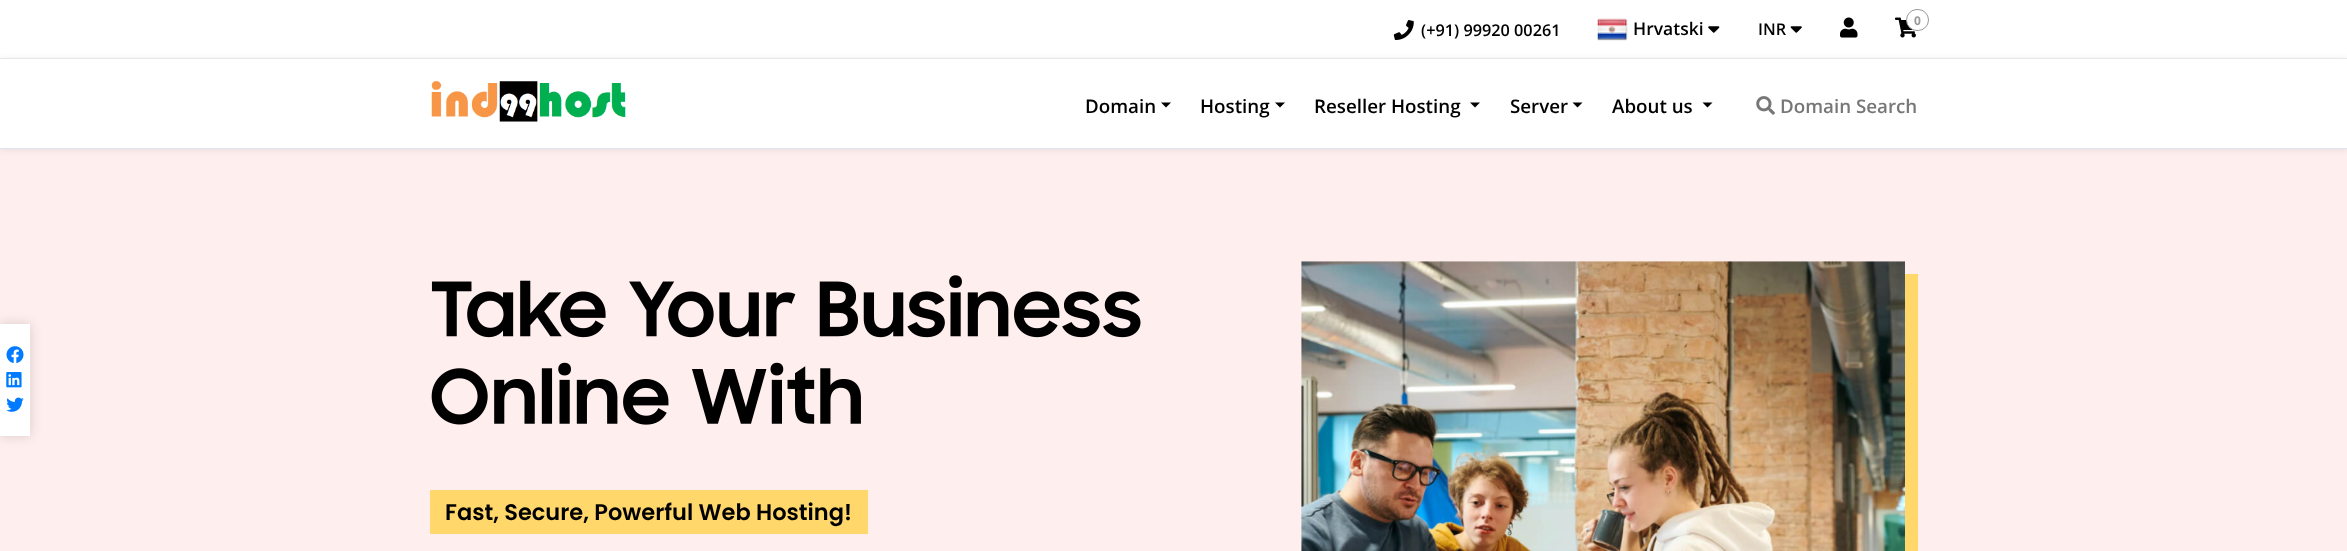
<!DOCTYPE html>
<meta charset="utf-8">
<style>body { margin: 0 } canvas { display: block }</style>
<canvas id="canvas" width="2347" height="551"></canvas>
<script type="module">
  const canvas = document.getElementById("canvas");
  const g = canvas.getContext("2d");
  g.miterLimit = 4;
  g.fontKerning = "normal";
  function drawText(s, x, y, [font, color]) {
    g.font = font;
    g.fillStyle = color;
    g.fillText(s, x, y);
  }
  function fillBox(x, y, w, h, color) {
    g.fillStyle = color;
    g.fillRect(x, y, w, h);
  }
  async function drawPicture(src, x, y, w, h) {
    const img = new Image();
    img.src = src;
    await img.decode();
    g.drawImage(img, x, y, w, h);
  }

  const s1 = ["600 16.25px Open Sans", "#000000"];
  const s2 = ["600 17.5px Open Sans", "#000000"];
  const s3 = ["bold 12px Open Sans", "#999999"];
  const s4 = ["600 18.75px Open Sans", "#000000"];
  const s5 = ["600 18.75px Open Sans", "#777777"];
  const s6 = ["600 22.5px Poppins", "#000000"];

  fillBox(0, 0, 2347, 551, "#FFFFFF");
  fillBox(0, 149, 2347, 402, "#FFEEEE");
  g.fillStyle = "rgba(0, 0, 0, 0.15)";
  g.filter = "blur(6px)";
  g.beginPath();
  g.rect(0, 324, 30, 112);
  g.fill();
  g.filter = "none";
  fillBox(0, 324, 30, 112, "#FFFFFF");
  await drawPicture("pic1.png", 6, 346, 18, 17);
  await drawPicture("pic2.png", 6, 372, 16, 16);
  await drawPicture("pic3.png", 6, 397, 18, 15);
  await drawPicture("pic4.png", 1393, 20, 21, 20);
  drawText("(+91) 99920 00261", 1421, 36, s1);
  await drawPicture("pic5.png", 1597, 18, 31, 23);
  drawText("Hrvatski", 1633, 35, s2);
  await drawPicture("pic6.png", 1708, 26, 12, 7);
  drawText("INR", 1758, 35, s1);
  await drawPicture("pic7.png", 1790, 26, 12, 7);
  await drawPicture("pic8.png", 1840, 17, 18, 21);
  await drawPicture("pic9.png", 1895, 17, 21, 21);
  g.fillStyle = "#FFFFFF";
  g.beginPath();
  g.roundRect(1906.5, 9.5, 22, 21, 10.5);
  g.fill();
  g.strokeStyle = "#999999";
  g.stroke();
  drawText("0", 1914, 25, s3);
  g.fillStyle = "rgba(0, 0, 0, 0.08)";
  g.filter = "blur(3px)";
  g.beginPath();
  g.rect(0, 59, 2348, 91);
  g.fill();
  g.filter = "none";
  fillBox(0, 59, 2347, 89, "#FFFFFF");
  fillBox(0, 58, 2347, 1, "#E7E7E7");
  fillBox(0, 148, 2347, 1, "#DFE4F2");
  await drawPicture("pic10.png", 431, 81, 195, 41);
  drawText("Domain", 1085, 113, s4);
  g.beginPath();
  g.moveTo(1161, 102.5);
  g.lineTo(1171, 102.5);
  g.lineTo(1166, 107.5);
  g.closePath();
  g.fill();
  drawText("Hosting", 1200, 113, s4);
  g.beginPath();
  g.moveTo(1275, 102.5);
  g.lineTo(1285, 102.5);
  g.lineTo(1280, 107.5);
  g.closePath();
  g.fill();
  drawText("Reseller Hosting", 1314, 113, s4);
  g.beginPath();
  g.moveTo(1470, 102.5);
  g.lineTo(1480, 102.5);
  g.lineTo(1475, 107.5);
  g.closePath();
  g.fill();
  drawText("Server", 1510, 113, s4);
  g.beginPath();
  g.moveTo(1572.5, 102.5);
  g.lineTo(1582.5, 102.5);
  g.lineTo(1577.5, 107.5);
  g.closePath();
  g.fill();
  drawText("About us", 1612, 113, s4);
  g.beginPath();
  g.moveTo(1702.5, 102.5);
  g.lineTo(1712.5, 102.5);
  g.lineTo(1707.5, 107.5);
  g.closePath();
  g.fill();
  await drawPicture("pic11.png", 1756, 96, 19, 19);
  drawText("Domain Search", 1780, 113, s5);
  await drawPicture("pic12.png", 431, 275, 710, 63);
  await drawPicture("pic13.png", 431, 362, 430, 63);
  fillBox(430, 490, 438, 44, "#FFD76A");
  drawText("Fast, Secure, Powerful Web Hosting!", 445, 520, s6);
  await drawPicture("pic14.png", 1301, 261, 604, 290);
  fillBox(1905, 274, 13, 277, "#FFD76A");
</script>
